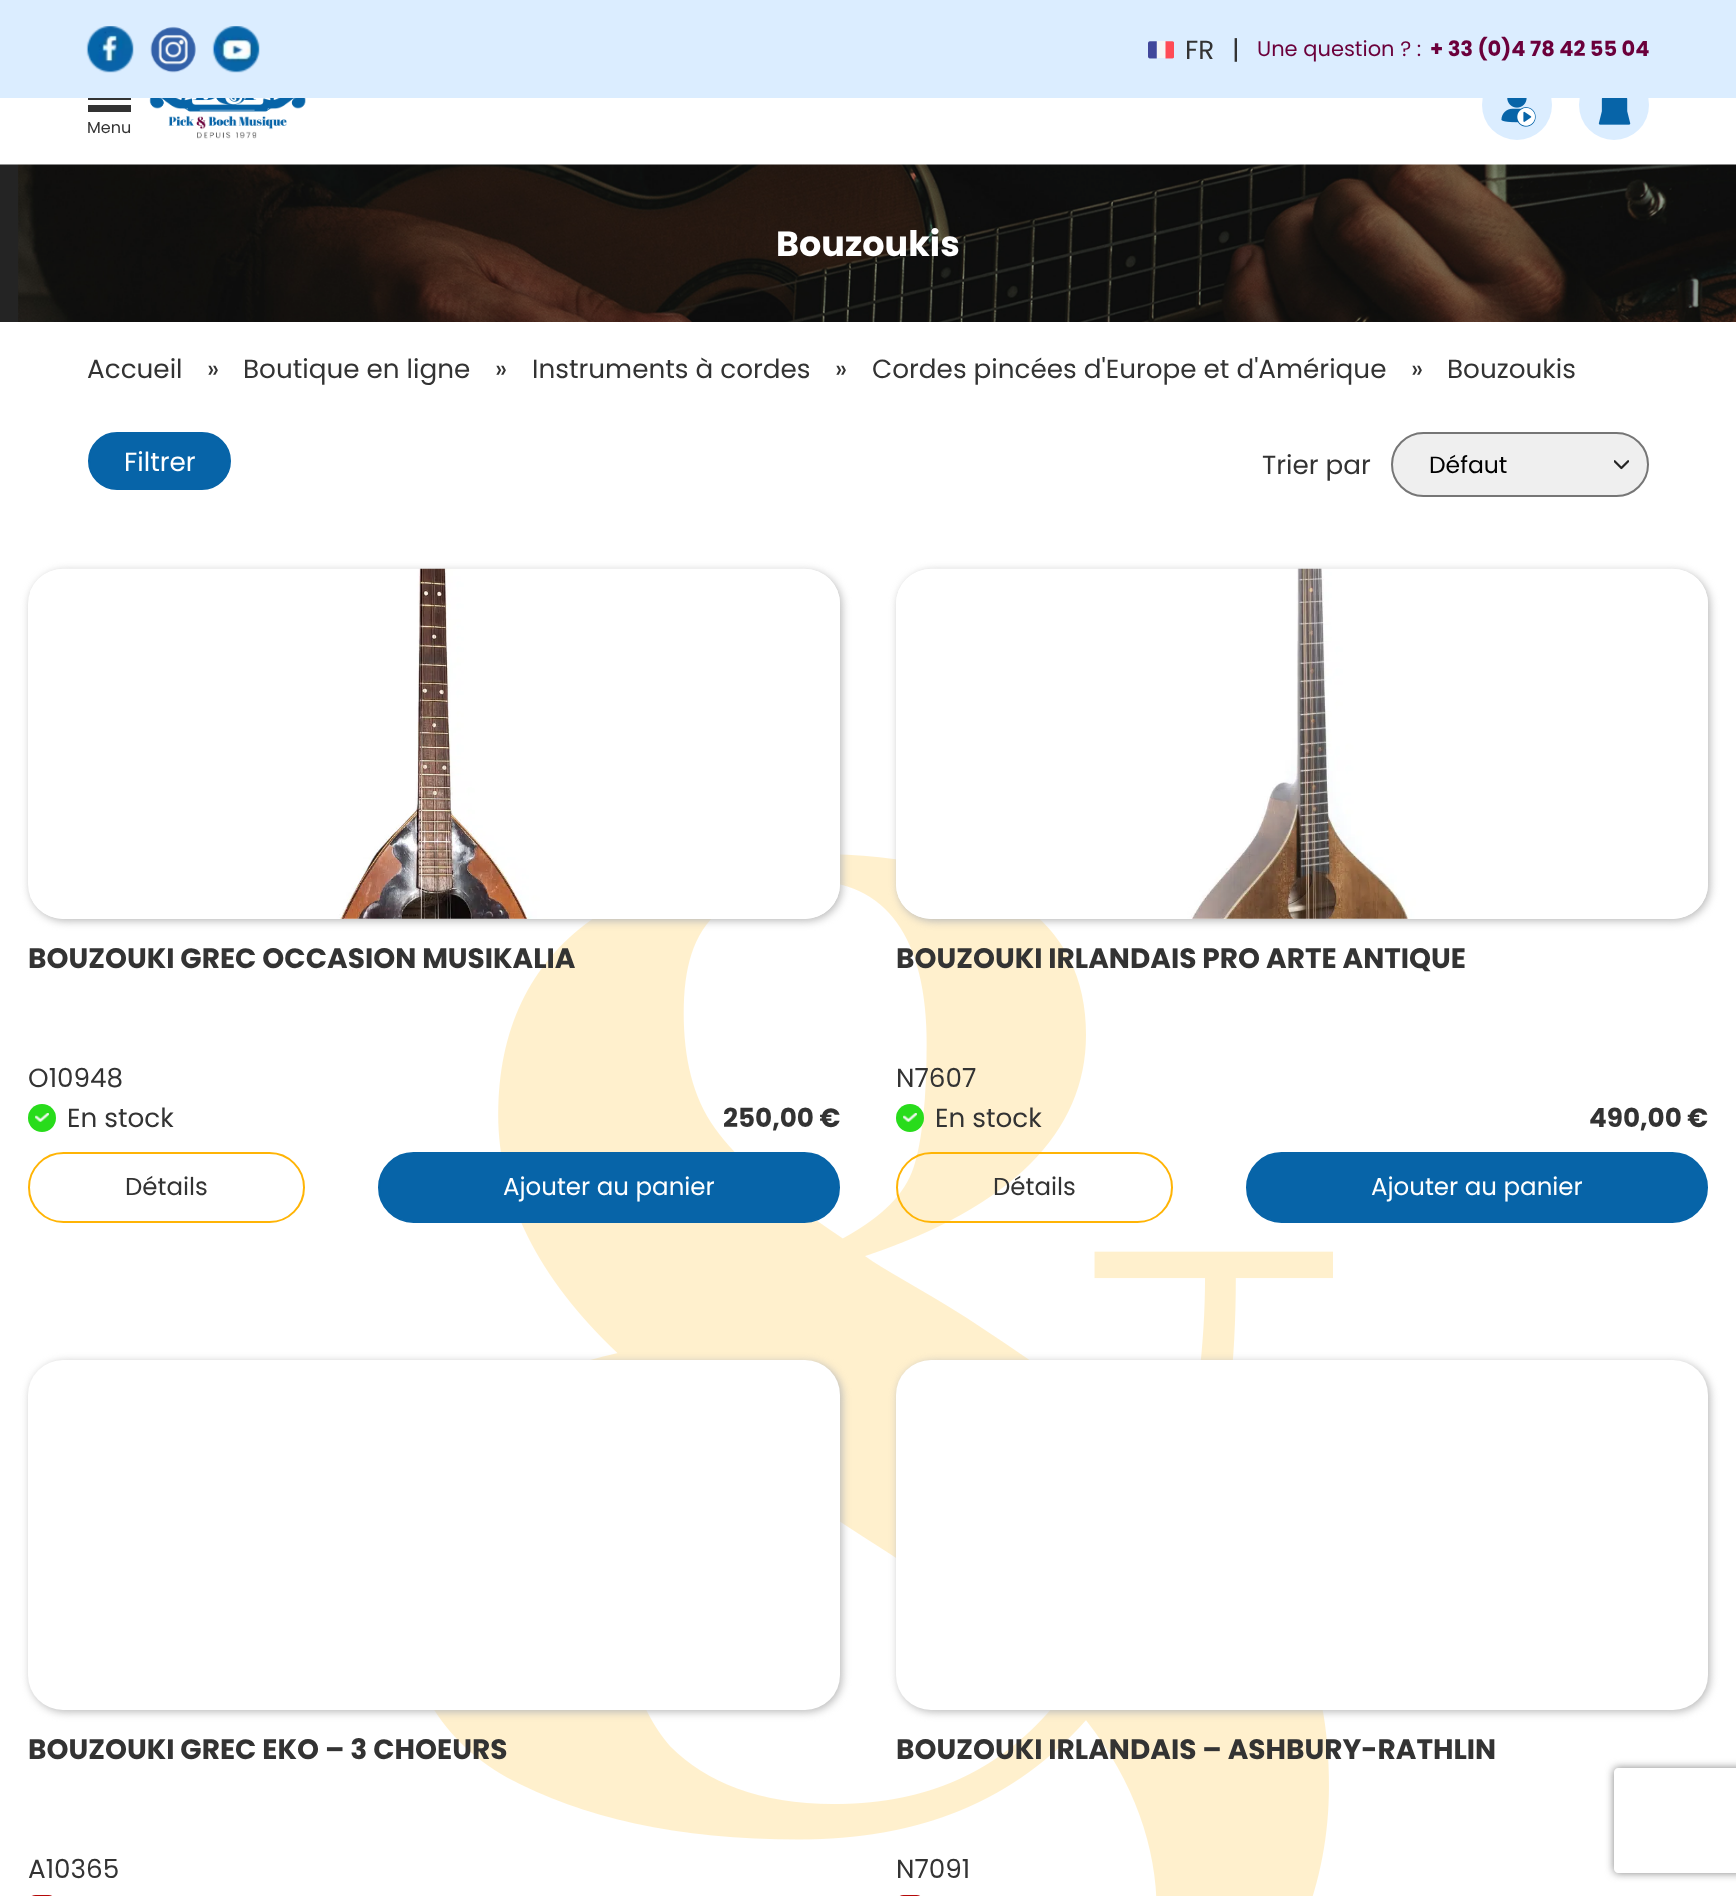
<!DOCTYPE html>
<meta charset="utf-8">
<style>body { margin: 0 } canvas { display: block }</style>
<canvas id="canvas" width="1736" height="1896"></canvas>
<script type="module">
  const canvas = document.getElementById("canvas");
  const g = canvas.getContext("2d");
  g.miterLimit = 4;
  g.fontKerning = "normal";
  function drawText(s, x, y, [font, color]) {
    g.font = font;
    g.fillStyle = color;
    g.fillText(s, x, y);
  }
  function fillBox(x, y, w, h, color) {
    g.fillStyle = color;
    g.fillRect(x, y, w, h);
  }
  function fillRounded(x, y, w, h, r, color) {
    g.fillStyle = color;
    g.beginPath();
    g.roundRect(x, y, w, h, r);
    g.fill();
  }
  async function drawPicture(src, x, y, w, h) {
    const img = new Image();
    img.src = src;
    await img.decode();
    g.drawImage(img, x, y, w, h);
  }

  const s1 = ["26.25px Poppins", "#333333"];
  const s2 = ["21px Poppins", "#6B003B"];
  const s3 = ["bold 21px Poppins", "#6B003B"];
  const s4 = ["16px Poppins", "#333333"];
  const s5 = ["bold 35px Poppins", "#FFFFFF"];
  const s6 = ["26.25px Poppins", "#FFFFFF"];
  const s7 = ["23.5px Poppins", "#000000"];
  const s8 = ["bold 28px Poppins", "#333333"];
  const s9 = ["bold 26.25px Poppins", "#333333"];
  const s10 = ["24.5px Poppins", "#333333"];
  const s11 = ["24.5px Poppins", "#FFFFFF"];

  fillBox(0, 0, 1736, 1896, "#FFFFFF");
  g.fillStyle = "#DBEDFF";
  g.beginPath();
  g.arc(1517, 105, 35, 0, Math.PI * 2);
  g.fill();
  g.beginPath();
  g.arc(1614, 105, 35, 0, Math.PI * 2);
  g.fill();
  fillBox(0, 0, 1736, 98, "#DBEDFF");
  await drawPicture("pic1.png", 86, 26, 48, 47);
  await drawPicture("pic2.png", 150, 26, 46, 47);
  await drawPicture("pic3.png", 212, 26, 48, 47);
  await drawPicture("pic4.png", 1148, 41, 26, 18);
  drawText("FR", 1185, 59, s1);
  drawText("|", 1232, 59, s1);
  drawText("Une question ? :", 1257, 56, s2);
  drawText("+ 33 (0)4 78 42 55 04", 1430, 56, s3);
  fillBox(88, 98, 43, 2, "#333333");
  fillBox(88, 105, 43, 7, "#333333");
  drawText("Menu", 87, 133, s4);
  await drawPicture("pic5.png", 149, 98, 157, 41);
  await drawPicture("pic6.png", 1501, 98, 35, 29);
  await drawPicture("pic7.png", 1598, 98, 33, 27);
  await drawPicture("pic8.png", 0, 164, 1736, 158);
  drawText("Bouzoukis", 776, 256, s5);
  drawText("Accueil", 87, 378, s1);
  drawText("»", 207, 378, s1);
  drawText("Boutique en ligne", 243, 378, s1);
  drawText("»", 495, 378, s1);
  drawText("Instruments à cordes", 532, 378, s1);
  drawText("»", 835, 378, s1);
  drawText("Cordes pincées d'Europe et d'Amérique", 872, 378, s1);
  drawText("»", 1411, 378, s1);
  drawText("Bouzoukis", 1447, 378, s1);
  g.fillStyle = "#0764A8";
  g.beginPath();
  g.roundRect(89, 433, 141, 56, 28);
  g.fill();
  g.strokeStyle = "#0764A8";
  g.lineWidth = 2;
  g.stroke();
  drawText("Filtrer", 124, 471, s6);
  drawText("Trier par", 1262, 474, s1);
  fillRounded(1391, 432, 258, 65, 32.5, "#EFEFEF");
  await drawPicture("pic9.png", 1614, 460, 15, 10);
  g.beginPath();
  g.roundRect(1392, 433, 256, 63, 31.5);
  g.strokeStyle = "#767676";
  g.stroke();
  drawText("Défaut", 1429, 473, s7);
  await drawPicture("pic14.png", 434, 854, 899, 1042);
  g.fillStyle = "#B9B9B9";
  g.filter = "blur(4.5px)";
  g.beginPath();
  g.roundRect(30, 571, 812, 350, 35);
  g.fill();
  g.filter = "none";
  fillRounded(28, 569, 812, 350, 35, "#FFFFFF");
  await drawPicture("pic10.png", 30, 568, 810, 351);
  drawText("BOUZOUKI GREC OCCASION MUSIKALIA", 28, 968, s8);
  drawText("O10948", 28, 1087, s1);
  g.fillStyle = "#28DC1B";
  g.beginPath();
  g.arc(42, 1118, 14, 0, Math.PI * 2);
  g.fill();
  await drawPicture("pic11.png", 35, 1113, 14, 9);
  drawText("En stock", 67, 1127, s1);
  drawText("250,00 €", 723, 1127, s9);
  g.beginPath();
  g.roundRect(29, 1153, 275, 69, 34.5);
  g.strokeStyle = "#FFB405";
  g.stroke();
  drawText("Détails", 125, 1195, s10);
  g.fillStyle = "#0764A8";
  g.beginPath();
  g.roundRect(379, 1153, 460, 69, 34.5);
  g.fill();
  g.strokeStyle = "#0764A8";
  g.stroke();
  drawText("Ajouter au panier", 503, 1195, s11);
  g.fillStyle = "#B9B9B9";
  g.filter = "blur(4.5px)";
  g.beginPath();
  g.roundRect(898, 571, 812, 350, 35);
  g.fill();
  g.filter = "none";
  fillRounded(896, 569, 812, 350, 35, "#FFFFFF");
  await drawPicture("pic12.png", 896, 568, 812, 351);
  drawText("BOUZOUKI IRLANDAIS PRO ARTE ANTIQUE", 896, 968, s8);
  drawText("N7607", 896, 1087, s1);
  g.fillStyle = "#28DC1B";
  g.beginPath();
  g.arc(910, 1118, 14, 0, Math.PI * 2);
  g.fill();
  await drawPicture("pic13.png", 903, 1113, 14, 9);
  drawText("En stock", 935, 1127, s1);
  drawText("490,00 €", 1589, 1127, s9);
  g.beginPath();
  g.roundRect(897, 1153, 275, 69, 34.5);
  g.strokeStyle = "#FFB405";
  g.stroke();
  drawText("Détails", 993, 1195, s10);
  g.fillStyle = "#0764A8";
  g.beginPath();
  g.roundRect(1247, 1153, 460, 69, 34.5);
  g.fill();
  g.strokeStyle = "#0764A8";
  g.stroke();
  drawText("Ajouter au panier", 1371, 1195, s11);
  g.fillStyle = "#B9B9B9";
  g.filter = "blur(4.5px)";
  g.beginPath();
  g.roundRect(30, 1362, 812, 350, 35);
  g.fill();
  g.filter = "none";
  fillRounded(28, 1360, 812, 350, 35, "#FFFFFF");
  drawText("BOUZOUKI GREC EKO – 3 CHOEURS", 28, 1759, s8);
  drawText("A10365", 28, 1878, s1);
  fillRounded(28, 1895, 28, 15, 14, "#B50909");
  g.fillStyle = "#B9B9B9";
  g.filter = "blur(4.5px)";
  g.beginPath();
  g.roundRect(898, 1362, 812, 350, 35);
  g.fill();
  g.filter = "none";
  fillRounded(896, 1360, 812, 350, 35, "#FFFFFF");
  drawText("BOUZOUKI IRLANDAIS – ASHBURY-RATHLIN", 896, 1759, s8);
  drawText("N7091", 896, 1878, s1);
  fillRounded(896, 1895, 28, 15, 14, "#B50909");
  g.save();
  g.beginPath();
  g.moveTo(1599, 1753);
  g.lineTo(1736, 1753);
  g.lineTo(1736, 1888);
  g.lineTo(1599, 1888);
  g.closePath();
  g.moveTo(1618, 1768);
  g.lineTo(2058, 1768);
  g.bezierCurveTo(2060, 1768, 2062, 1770, 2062, 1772);
  g.lineTo(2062, 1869);
  g.bezierCurveTo(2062, 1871, 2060, 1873, 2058, 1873);
  g.lineTo(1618, 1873);
  g.bezierCurveTo(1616, 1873, 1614, 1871, 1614, 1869);
  g.lineTo(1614, 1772);
  g.bezierCurveTo(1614, 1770, 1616, 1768, 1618, 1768);
  g.closePath();
  g.clip("evenodd");
  g.fillStyle = "#808080";
  g.filter = "blur(4.5px)";
  g.beginPath();
  g.roundRect(1614, 1768, 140, 105, 4);
  g.fill();
  g.filter = "none";
  g.restore();
</script>
